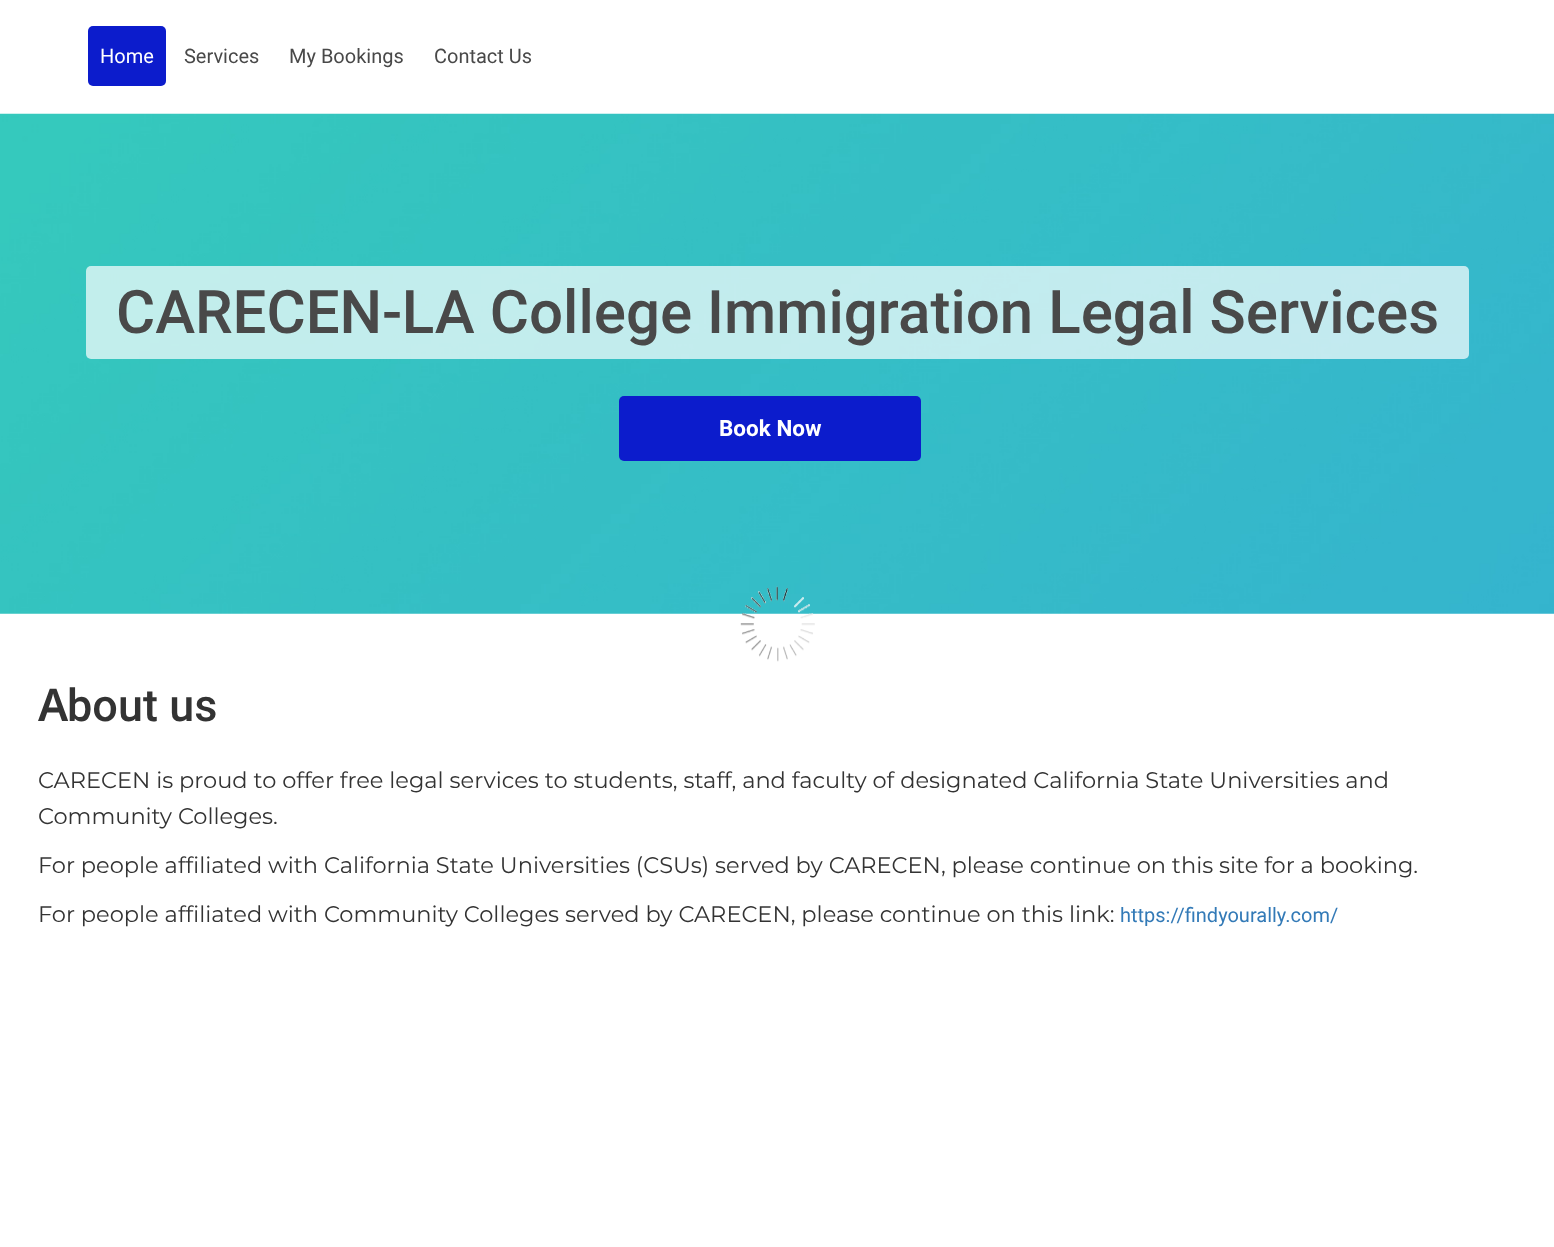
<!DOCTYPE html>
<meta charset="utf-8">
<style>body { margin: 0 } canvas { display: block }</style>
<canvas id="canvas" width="1554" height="1247"></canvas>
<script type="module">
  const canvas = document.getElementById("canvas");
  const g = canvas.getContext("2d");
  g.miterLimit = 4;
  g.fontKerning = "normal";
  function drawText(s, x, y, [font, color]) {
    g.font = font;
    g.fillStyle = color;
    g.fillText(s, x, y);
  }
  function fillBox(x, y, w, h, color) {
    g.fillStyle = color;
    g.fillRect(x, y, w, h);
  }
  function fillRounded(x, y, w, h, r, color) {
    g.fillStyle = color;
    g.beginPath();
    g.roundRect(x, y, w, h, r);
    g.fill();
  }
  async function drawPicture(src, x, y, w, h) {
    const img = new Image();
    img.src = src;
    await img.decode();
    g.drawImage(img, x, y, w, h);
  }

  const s1 = ["20px Roboto", "#FFFFFF"];
  const s2 = ["20px Roboto", "#494949"];
  const s3 = ["500 60px Roboto", "#494949"];
  const s4 = ["bold 22.5px Roboto", "#FFFFFF"];
  const s5 = ["600 45px Noto Sans", "#333333"];
  const s6 = ["500 45px Roboto", "#333333"];
  const s7 = ["22.5px Montserrat", "#333333"];
  const s8 = ["20px Roboto", "#337AB7"];

  fillBox(0, 0, 1554, 1247, "#FFFFFF");
  fillRounded(88, 26, 78, 60, 5, "#0C1CCC");
  drawText("Home", 100, 63, s1);
  drawText("Services", 184, 63, s2);
  drawText("My Bookings", 289, 63, s2);
  drawText("Contact Us", 434, 63, s2);
  await drawPicture("pic1.png", 0, 113, 1554, 501);
  fillRounded(86, 266, 1383, 93, 5, "rgba(255, 255, 255, 0.7)");
  drawText("CARECEN-LA College Immigration Legal Services", 116, 333, s3);
  fillRounded(619, 396, 302, 65, 5, "#0C1CCC");
  drawText("Book Now", 719, 436, s4);
  await drawPicture("pic2.png", 740, 586, 75, 76);
  drawText("A", 38, 721, s5);
  drawText("bout us", 67, 721, s6);
  drawText("CARECEN is proud to offer free legal services to students, staff, and faculty of designated California State Universities and", 38, 788, s7);
  drawText("Community Colleges.", 38, 824, s7);
  drawText("For people affiliated with California State Universities (CSUs) served by CARECEN, please continue on this site for a booking.", 38, 873, s7);
  drawText("For people affiliated with Community Colleges served by CARECEN, please continue on this link:", 38, 922, s7);
  drawText("https://findyourally.com/", 1120, 922, s8);
</script>
